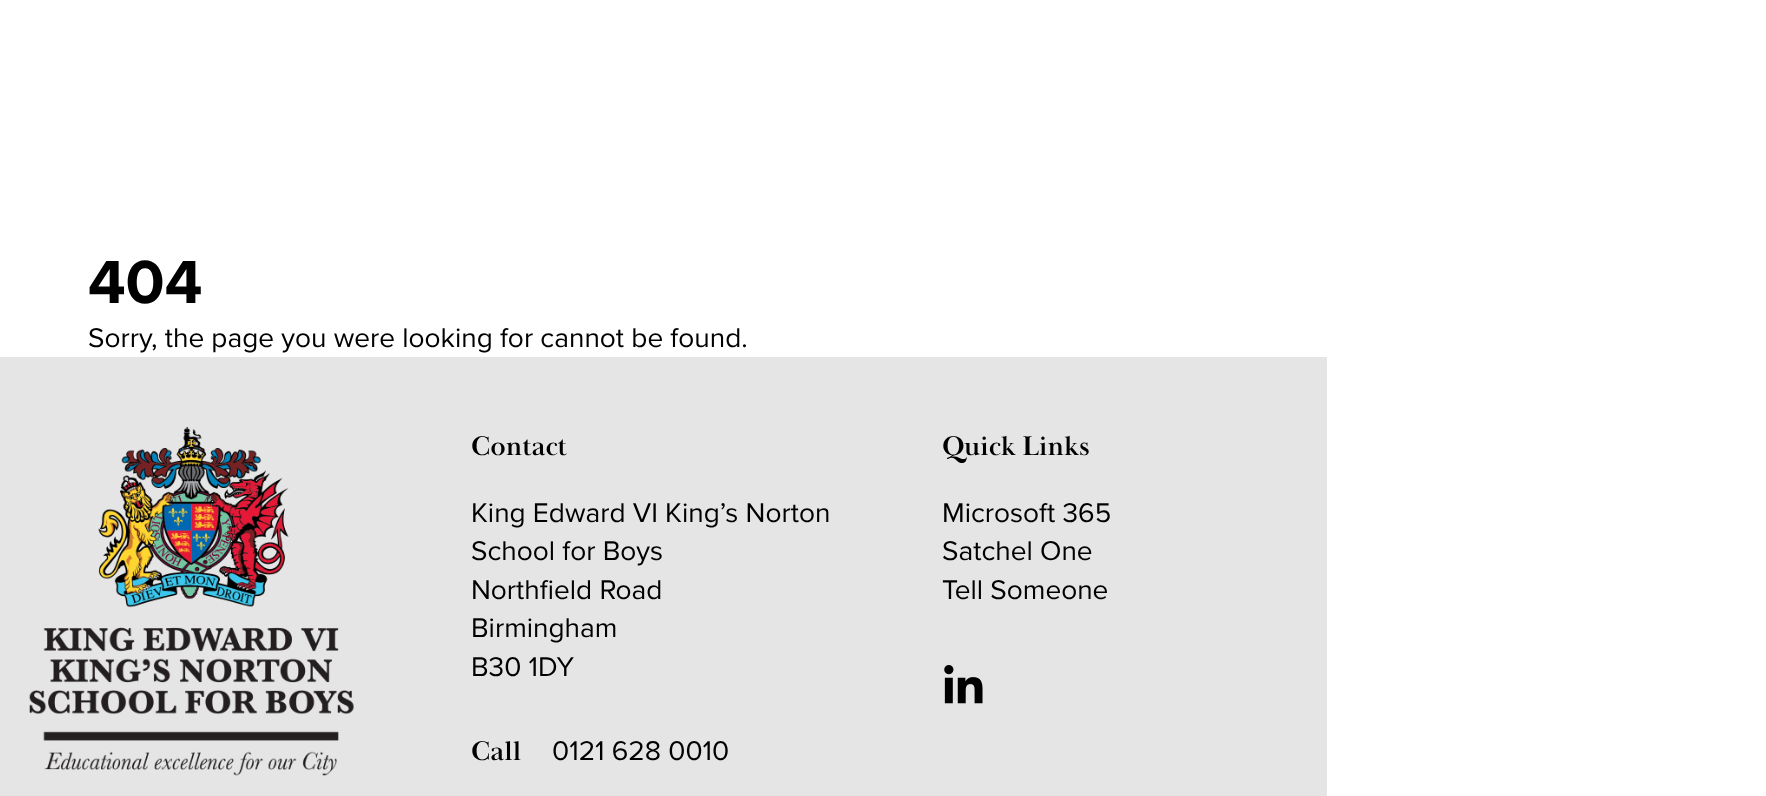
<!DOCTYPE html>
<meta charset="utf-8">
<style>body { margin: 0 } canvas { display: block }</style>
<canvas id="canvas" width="1766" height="796"></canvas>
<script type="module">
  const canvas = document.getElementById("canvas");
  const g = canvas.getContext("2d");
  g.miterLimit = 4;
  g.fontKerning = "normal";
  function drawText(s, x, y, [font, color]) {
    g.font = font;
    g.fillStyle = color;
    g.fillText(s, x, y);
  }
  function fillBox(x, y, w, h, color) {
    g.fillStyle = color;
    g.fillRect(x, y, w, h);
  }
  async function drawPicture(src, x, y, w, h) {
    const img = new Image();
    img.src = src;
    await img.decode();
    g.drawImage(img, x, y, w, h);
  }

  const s1 = ["bold 63px Proxima Nova", "#000000"];
  const s2 = ["28px Proxima Nova", "#000000"];
  const s3 = ["bold 28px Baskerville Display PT", "#000000"];

  fillBox(0, 0, 1766, 796, "#FFFFFF");
  drawText("404", 88, 303, s1);
  drawText("Sorry, the page you were looking for cannot be found.", 88, 347, s2);
  fillBox(0, 357, 1327, 439, "#E5E5E5");
  await drawPicture("pic1.png", 29, 427, 325, 349);
  drawText("Contact", 471, 455, s3);
  drawText("King Edward VI King’s Norton", 471, 522, s2);
  drawText("School for Boys", 471, 560, s2);
  drawText("Northfield Road", 471, 599, s2);
  drawText("Birmingham", 471, 637, s2);
  drawText("B30 1DY", 471, 676, s2);
  drawText("Call", 471, 760, s3);
  drawText("0121 628 0010", 552, 760, s2);
  drawText("Quick Links", 942, 455, s3);
  drawText("Microsoft 365", 942, 522, s2);
  drawText("Satchel One", 942, 560, s2);
  drawText("Tell Someone", 942, 599, s2);
  await drawPicture("pic2.png", 944, 665, 39, 39);
</script>
